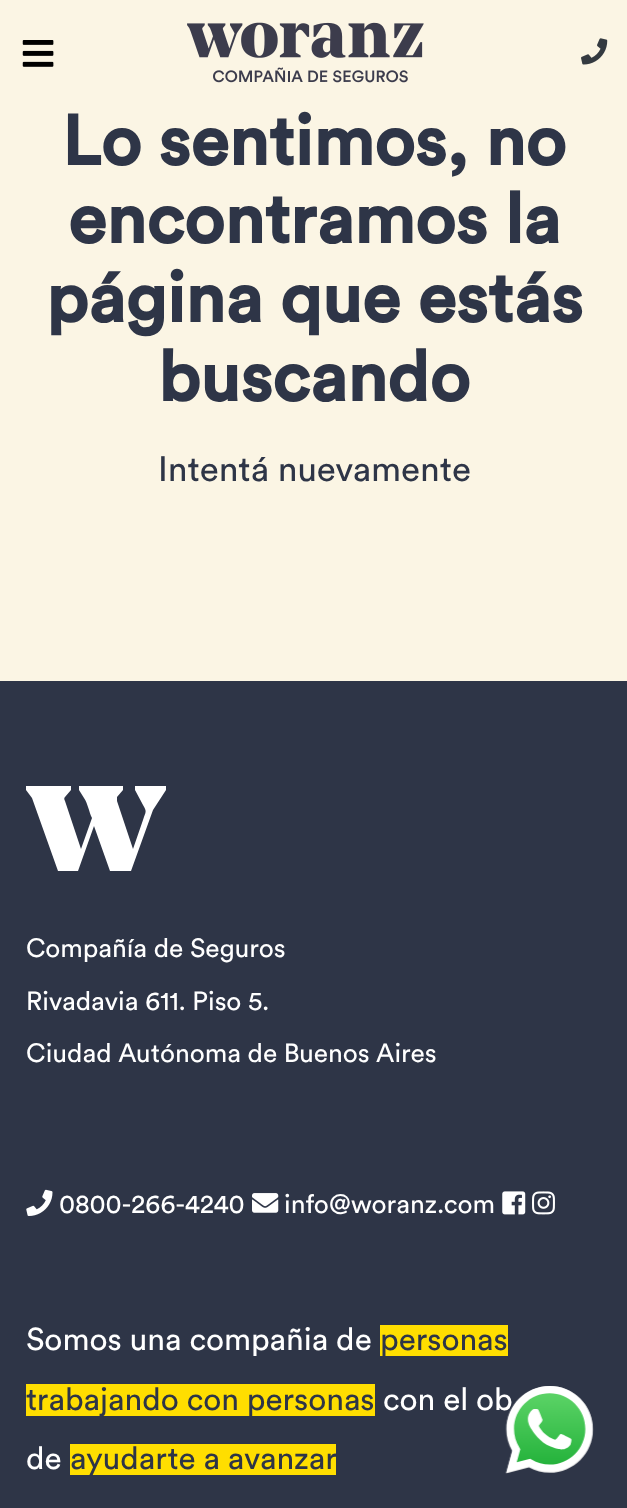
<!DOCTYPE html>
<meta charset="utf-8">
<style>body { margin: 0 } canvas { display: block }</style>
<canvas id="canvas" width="627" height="1508"></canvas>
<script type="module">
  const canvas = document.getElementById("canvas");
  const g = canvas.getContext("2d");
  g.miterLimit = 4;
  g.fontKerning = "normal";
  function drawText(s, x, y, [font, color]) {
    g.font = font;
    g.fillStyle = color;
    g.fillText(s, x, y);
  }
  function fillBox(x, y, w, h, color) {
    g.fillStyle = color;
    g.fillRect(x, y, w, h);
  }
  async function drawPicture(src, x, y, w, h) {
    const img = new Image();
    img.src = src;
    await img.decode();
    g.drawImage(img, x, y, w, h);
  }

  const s1 = ["bold 70px Circular", "#2E3547"];
  const s2 = ["35px Circular", "#2E3547"];
  const s3 = ["26.25px Circular", "#FFFFFF"];
  const s4 = ["31.5px Circular", "#FFFFFF"];
  const s5 = ["31.5px Circular", "#2E3547"];

  fillBox(0, 0, 627, 1508, "#2E3547");
  fillBox(0, 0, 627, 681, "#FBF5E4");
  await drawPicture("pic1.png", 22, 40, 32, 27);
  await drawPicture("pic2.png", 187, 22, 237, 61);
  await drawPicture("pic3.png", 581, 38, 27, 27);
  drawText("Lo sentimos, no", 62, 165, s1);
  drawText("encontramos la", 68, 243, s1);
  drawText("página que estás", 46, 322, s1);
  drawText("buscando", 158, 401, s1);
  drawText("Intentá nuevamente", 158, 481, s2);
  g.fillStyle = "#FFFFFF";
  g.beginPath();
  g.moveTo(135, 786);
  g.lineTo(135, 790);
  g.lineTo(143, 805);
  g.bezierCurveTo(147, 812, 146, 811, 143, 820);
  g.lineTo(133, 849);
  g.lineTo(117, 801);
  g.bezierCurveTo(117, 799, 117, 798, 117, 797);
  g.lineTo(123, 790);
  g.lineTo(123, 786);
  g.lineTo(79, 786);
  g.lineTo(79, 790);
  g.lineTo(84, 798);
  g.bezierCurveTo(88, 804, 89, 812, 92, 818);
  g.lineTo(81, 849);
  g.lineTo(65, 801);
  g.bezierCurveTo(64, 799, 64, 798, 65, 797);
  g.lineTo(71, 790);
  g.lineTo(71, 786);
  g.lineTo(26, 786);
  g.lineTo(26, 790);
  g.lineTo(32, 798);
  g.lineTo(58, 871);
  g.lineTo(78, 871);
  g.lineTo(94, 826);
  g.lineTo(110, 871);
  g.lineTo(131, 871);
  g.lineTo(153, 810);
  g.lineTo(166, 790);
  g.lineTo(166, 786);
  g.closePath();
  g.fill();
  drawText("Compañía de Seguros", 26, 957, s3);
  drawText("Rivadavia 611. Piso 5.", 26, 1010, s3);
  drawText("Ciudad Autónoma de Buenos Aires", 26, 1062, s3);
  await drawPicture("pic4.png", 26, 1189, 27, 27);
  drawText("0800-266-4240", 59, 1213, s3);
  await drawPicture("pic5.png", 252, 1193, 27, 20);
  drawText("info@woranz.com", 284, 1213, s3);
  await drawPicture("pic6.png", 502, 1191, 24, 24);
  await drawPicture("pic7.png", 532, 1191, 23, 24);
  drawText("Somos una compañia de", 26, 1350, s4);
  fillBox(380, 1325, 128, 31, "#FFDE00");
  drawText("personas", 380, 1350, s5);
  fillBox(26, 1384, 349, 32, "#FFDE00");
  drawText("trabajando con personas", 26, 1410, s5);
  drawText("con el ob", 383, 1410, s4);
  drawText("de", 26, 1469, s4);
  fillBox(70, 1444, 266, 31, "#FFDE00");
  drawText("ayudarte a avanzar", 70, 1469, s5);
  await drawPicture("pic8.png", 505, 1386, 89, 88);
</script>
